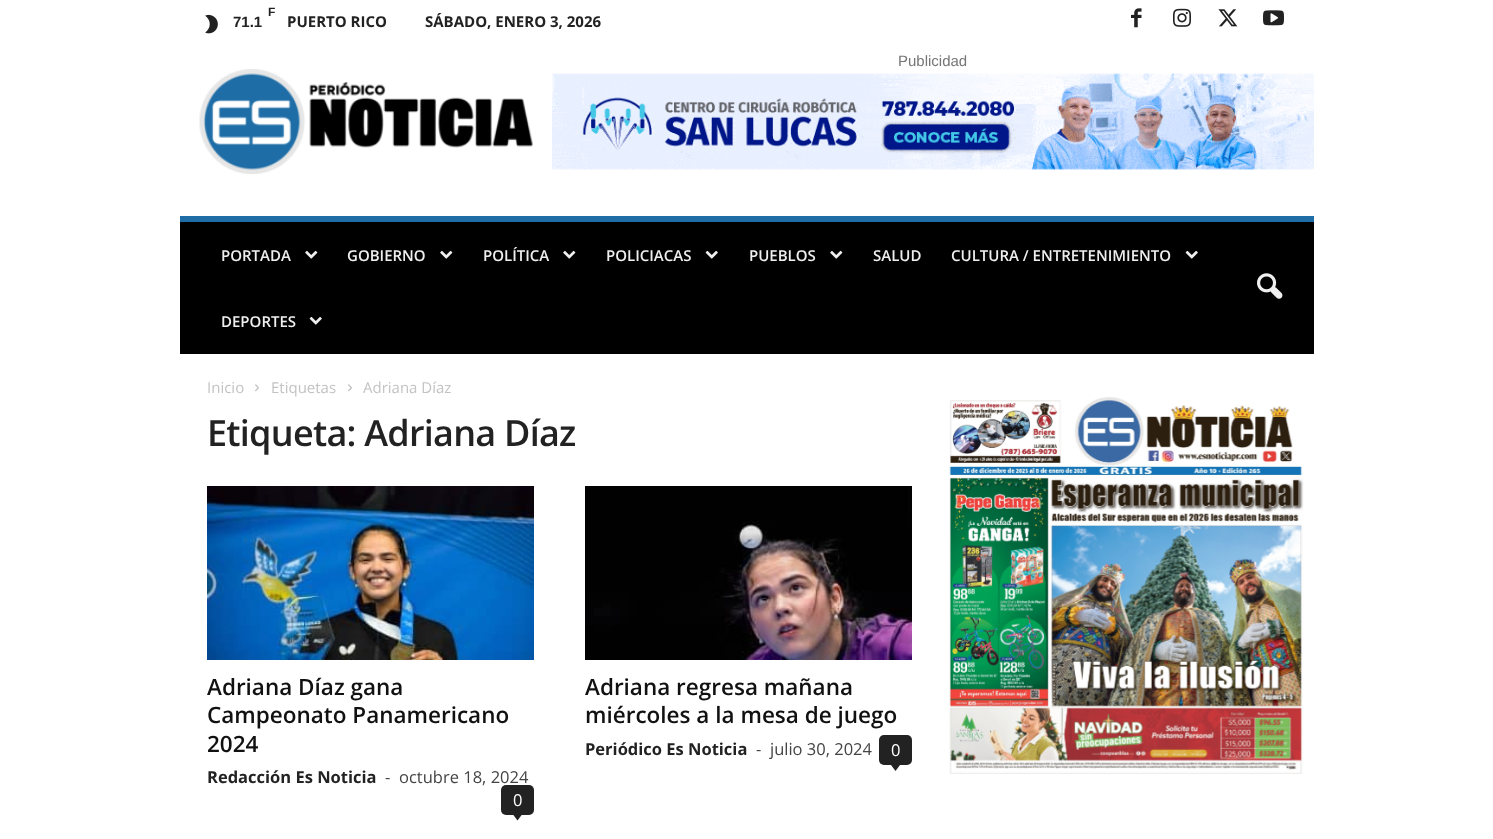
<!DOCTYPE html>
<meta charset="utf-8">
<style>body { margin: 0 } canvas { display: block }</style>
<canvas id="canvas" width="1493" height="839"></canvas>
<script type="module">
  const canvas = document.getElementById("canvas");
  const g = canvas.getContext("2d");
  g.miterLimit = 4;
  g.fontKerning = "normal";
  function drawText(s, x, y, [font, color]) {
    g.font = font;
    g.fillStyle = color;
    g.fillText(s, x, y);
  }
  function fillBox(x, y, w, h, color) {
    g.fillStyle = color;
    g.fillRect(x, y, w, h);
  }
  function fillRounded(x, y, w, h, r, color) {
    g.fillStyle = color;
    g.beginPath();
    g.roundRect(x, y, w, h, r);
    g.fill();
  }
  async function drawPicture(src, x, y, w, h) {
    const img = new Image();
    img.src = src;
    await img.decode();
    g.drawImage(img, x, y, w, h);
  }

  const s1 = ["bold 12px Liberation Sans", "#222222"];
  const s2 = ["bold 15px Liberation Sans", "#222222"];
  const s3 = ["bold 15px Open Sans", "#222222"];
  const s4 = ["15px Liberation Sans", "#767676"];
  const s5 = ["600 15px Open Sans", "#EFEFEF"];
  const s6 = ["15px Open Sans", "#C3C3C3"];
  const s7 = ["600 36px Open Sans", "#222222"];
  const s8 = ["600 22.5px Open Sans", "#111111"];
  const s9 = ["bold 16.5px Open Sans", "#222222"];
  const s10 = ["16.5px Open Sans", "#444444"];
  const s11 = ["16.5px Open Sans", "#FFFFFF"];

  fillBox(0, 0, 1493, 839, "#FFFFFF");
  await drawPicture("pic1.png", 205, 14, 13, 20);
  drawText("F", 268, 16, s1);
  drawText("71.1", 233, 27, s2);
  drawText("PUERTO RICO", 287, 27, s3);
  drawText("SÁBADO, ENERO 3, 2026", 425, 27, s3);
  await drawPicture("pic2.png", 1131, 8, 11, 20);
  await drawPicture("pic3.png", 1173, 8, 18, 19);
  await drawPicture("pic4.png", 1218, 9, 20, 18);
  await drawPicture("pic5.png", 1263, 10, 21, 16);
  drawText("Publicidad", 898, 66, s4);
  await drawPicture("pic6.png", 552, 73, 762, 97);
  await drawPicture("pic7.png", 199, 69, 334, 105);
  fillBox(180, 222, 1134, 132, "#000000");
  fillBox(180, 216, 1134, 6, "#1E6DA6");
  drawText("PORTADA", 221, 261, s5);
  await drawPicture("pic8.png", 305, 250, 13, 9);
  drawText("GOBIERNO", 347, 261, s5);
  await drawPicture("pic8.png", 440, 250, 13, 9);
  drawText("POLÍTICA", 483, 261, s5);
  await drawPicture("pic8.png", 563, 250, 13, 9);
  drawText("POLICIACAS", 606, 261, s5);
  await drawPicture("pic9.png", 705, 250, 13, 9);
  drawText("PUEBLOS", 749, 261, s5);
  await drawPicture("pic8.png", 830, 250, 13, 9);
  drawText("SALUD", 873, 261, s5);
  drawText("CULTURA / ENTRETENIMIENTO", 951, 261, s5);
  await drawPicture("pic9.png", 1185, 250, 13, 9);
  drawText("DEPORTES", 221, 327, s5);
  await drawPicture("pic9.png", 309, 316, 13, 9);
  await drawPicture("pic10.png", 1257, 273, 26, 26);
  drawText("Inicio", 207, 393, s6);
  await drawPicture("pic11.png", 255, 384, 4, 8);
  drawText("Etiquetas", 271, 393, s6);
  await drawPicture("pic11.png", 348, 384, 4, 8);
  drawText("Adriana Díaz", 363, 393, s6);
  g.letterSpacing = "-0.75px";
  drawText("Etiqueta: Adriana Díaz", 207, 446, s7);
  await drawPicture("pic12.png", 207, 486, 327, 174);
  g.letterSpacing = "0px";
  drawText("Adriana Díaz gana", 207, 695, s8);
  drawText("Campeonato Panamericano", 207, 723, s8);
  drawText("2024", 207, 752, s8);
  drawText("Redacción Es Noticia", 207, 783, s9);
  drawText("-", 385, 783, s10);
  drawText("octubre 18, 2024", 399, 783, s10);
  fillRounded(501, 785, 33, 30, 5, "#222222");
  drawText("0", 513, 806, s11);
  g.fillStyle = "#222222";
  g.beginPath();
  g.moveTo(513, 814.5);
  g.lineTo(522, 814.5);
  g.lineTo(517.5, 820.5);
  g.closePath();
  g.fill();
  await drawPicture("pic13.png", 585, 486, 327, 174);
  drawText("Adriana regresa mañana", 585, 695, s8);
  drawText("miércoles a la mesa de juego", 585, 723, s8);
  drawText("Periódico Es Noticia", 585, 755, s9);
  drawText("-", 756, 755, s10);
  drawText("julio 30, 2024", 770, 755, s10);
  fillRounded(879, 735, 33, 30, 5, "#222222");
  drawText("0", 891, 756, s11);
  g.fillStyle = "#222222";
  g.beginPath();
  g.moveTo(891, 765);
  g.lineTo(900, 765);
  g.lineTo(895.5, 771);
  g.closePath();
  g.fill();
  await drawPicture("pic14.png", 949, 397, 355, 377);
</script>
